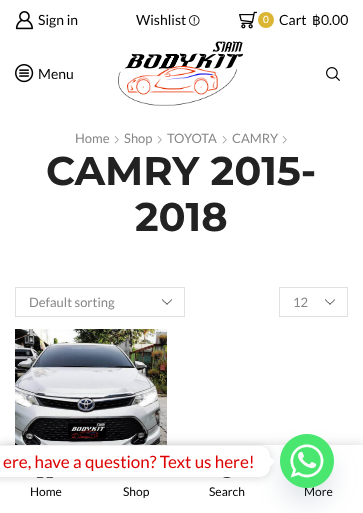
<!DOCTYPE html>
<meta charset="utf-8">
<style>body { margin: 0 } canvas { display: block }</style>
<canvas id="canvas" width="363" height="513"></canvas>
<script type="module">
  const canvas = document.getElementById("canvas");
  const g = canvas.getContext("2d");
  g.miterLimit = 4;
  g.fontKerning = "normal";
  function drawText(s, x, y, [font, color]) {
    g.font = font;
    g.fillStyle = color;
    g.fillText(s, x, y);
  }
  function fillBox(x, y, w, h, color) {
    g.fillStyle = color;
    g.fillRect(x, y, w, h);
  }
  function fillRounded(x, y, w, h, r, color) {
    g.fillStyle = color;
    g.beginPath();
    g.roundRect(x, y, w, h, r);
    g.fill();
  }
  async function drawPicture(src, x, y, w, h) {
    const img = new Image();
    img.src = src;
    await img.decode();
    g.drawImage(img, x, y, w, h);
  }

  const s1 = ["14px Lato", "#000000"];
  const s2 = ["10px Lato", "#FFFFFF"];
  const s3 = ["14px DejaVu Sans", "#000000"];
  const s4 = ["13px Lato", "#888888"];
  const s5 = ["bold 40px Montserrat", "#222222"];
  const s6 = ["12px Lato", "#000000"];
  const s7 = ["17px Lato", "#DD0000"];

  fillBox(0, 0, 363, 513, "#FFFFFF");
  await drawPicture("pic1.png", 15, 11, 18, 19);
  drawText("Sign in", 38, 25, s1);
  drawText("Wishlist", 136, 25, s1);
  await drawPicture("pic2.png", 189, 15, 11, 11);
  await drawPicture("pic3.png", 239, 11, 19, 18);
  g.fillStyle = "#DBB635";
  g.beginPath();
  g.arc(266, 20, 8, 0, Math.PI * 2);
  g.fill();
  drawText("0", 263, 23, s2);
  drawText("Cart", 279, 25, s1);
  drawText("฿", 312, 25, s3);
  drawText("0.00", 321, 25, s1);
  await drawPicture("pic4.png", 15, 64, 19, 19);
  drawText("Menu", 38, 79, s1);
  await drawPicture("pic5.png", 118, 41, 125, 65);
  await drawPicture("pic6.png", 326, 67, 14, 14);
  drawText("Home", 75, 143, s4);
  await drawPicture("pic7.png", 114, 136, 5, 8);
  drawText("Shop", 124, 143, s4);
  await drawPicture("pic7.png", 157, 136, 5, 8);
  drawText("TOYOTA", 167, 143, s4);
  await drawPicture("pic7.png", 222, 136, 5, 8);
  drawText("CAMRY", 232, 143, s4);
  await drawPicture("pic7.png", 282, 136, 5, 8);
  drawText("CAMRY 2015-", 46, 185, s5);
  drawText("2018", 135, 231, s5);
  await drawPicture("pic8.png", 162, 299, 10, 6);
  g.strokeStyle = "#E1E1E1";
  g.strokeRect(15.5, 287.5, 169, 29);
  drawText("Default sorting", 29, 307, s4);
  await drawPicture("pic9.png", 325, 299, 10, 6);
  g.strokeRect(279.5, 287.5, 68, 29);
  drawText("12", 293, 307, s4);
  await drawPicture("pic10.png", 15, 329, 152, 116);
  g.fillStyle = "rgba(0, 0, 0, 0.15)";
  g.filter = "blur(6px)";
  g.beginPath();
  g.rect(2, 445, 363, 68);
  g.fill();
  g.filter = "none";
  fillBox(0, 445, 363, 68, "#FFFFFF");
  await drawPicture("pic11.png", 36, 477, 17, 1);
  drawText("Home", 30, 496, s6);
  drawText("Shop", 123, 496, s6);
  await drawPicture("pic12.png", 223, 477, 8, 1);
  drawText("Search", 209, 496, s6);
  drawText("More", 304, 496, s6);
  g.fillStyle = "rgba(73, 104, 126, 0.16)";
  g.filter = "blur(12px)";
  g.beginPath();
  g.roundRect(280, 450, 54, 54, 27);
  g.fill();
  g.filter = "none";
  await drawPicture("pic13.png", 280, 434, 54, 54);
  g.fillStyle = "rgba(0, 0, 0, 0.15)";
  g.filter = "blur(4px)";
  g.beginPath();
  g.roundRect(-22, 447, 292, 31, 10);
  g.fill();
  g.filter = "none";
  fillRounded(-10, 446, 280, 31, 10, "#FFFFFF");
  drawText("ere, have a question? Text us here!", 3, 468, s7);
  g.fillStyle = "#FFFFFF";
  g.beginPath();
  g.moveTo(270, 466.5);
  g.lineTo(270, 456.5);
  g.lineTo(275, 461.5);
  g.closePath();
  g.fill();
</script>
